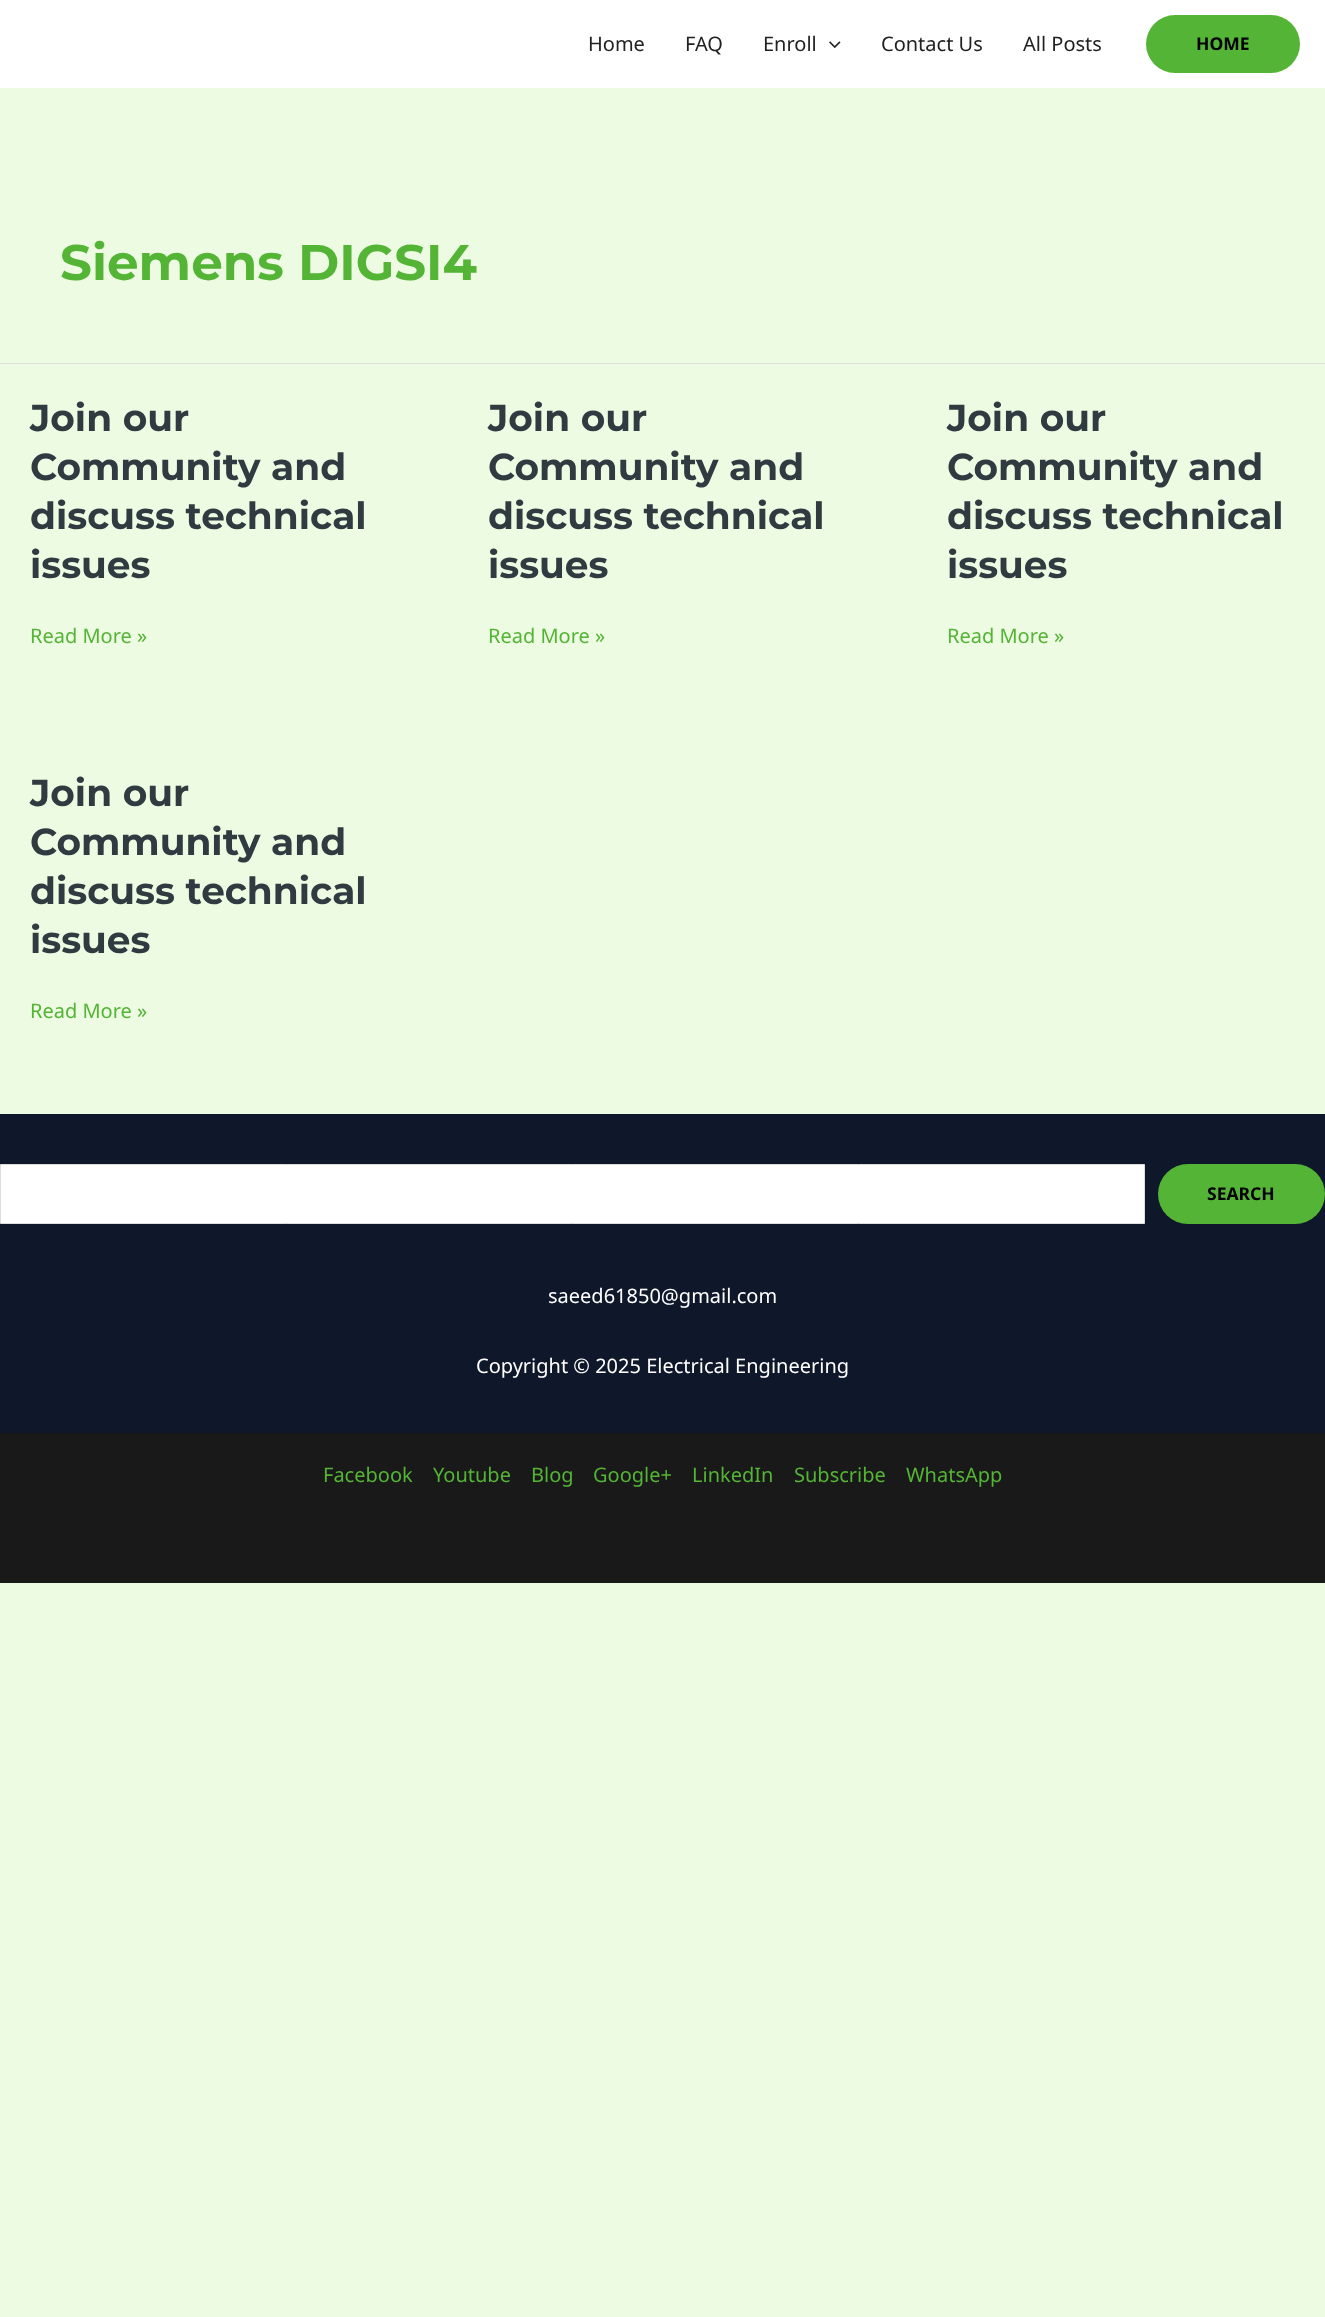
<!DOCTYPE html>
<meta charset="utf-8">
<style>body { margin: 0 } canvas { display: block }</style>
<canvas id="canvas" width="1325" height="2317"></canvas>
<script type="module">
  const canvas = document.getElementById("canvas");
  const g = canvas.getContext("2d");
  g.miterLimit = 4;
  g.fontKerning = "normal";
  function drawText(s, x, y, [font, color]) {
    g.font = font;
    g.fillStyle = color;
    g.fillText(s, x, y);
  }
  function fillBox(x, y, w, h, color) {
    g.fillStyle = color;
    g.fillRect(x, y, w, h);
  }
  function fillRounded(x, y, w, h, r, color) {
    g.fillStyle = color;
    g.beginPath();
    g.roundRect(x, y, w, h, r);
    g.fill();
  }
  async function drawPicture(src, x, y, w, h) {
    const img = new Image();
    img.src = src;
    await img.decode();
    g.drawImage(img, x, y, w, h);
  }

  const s1 = ["20px Noto Sans", "#222222"];
  const s2 = ["bold 17.5px Noto Sans", "#000000"];
  const s3 = ["100 50px Montserrat", "#54B435"];
  const s4 = ["100 37.5px Montserrat", "#2F3B40"];
  const s5 = ["20px Noto Sans", "#54B435"];
  const s6 = ["20px Noto Sans", "#FFFFFF"];

  fillBox(0, 0, 1325, 2317, "#EDFBE2");
  fillBox(0, 0, 1325, 88, "#FFFFFF");
  drawText("Home", 588, 51, s1);
  drawText("FAQ", 685, 51, s1);
  drawText("Enroll", 763, 51, s1);
  await drawPicture("pic1.png", 829, 41, 12, 8);
  drawText("Contact Us", 881, 51, s1);
  drawText("All Posts", 1023, 51, s1);
  fillRounded(1146, 15, 154, 58, 29, "#54B435");
  drawText("HOME", 1196, 50, s2);
  fillBox(0, 363, 1325, 1, "#DDDDDD");
  drawText("Siemens DIGSI4", 60, 280, s3);
  drawText("Join our", 30, 431, s4);
  drawText("Community and", 30, 480, s4);
  drawText("discuss technical", 30, 529, s4);
  drawText("issues", 30, 578, s4);
  drawText("Read More »", 30, 643, s5);
  drawText("Join our", 488, 431, s4);
  drawText("Community and", 488, 480, s4);
  drawText("discuss technical", 488, 529, s4);
  drawText("issues", 488, 578, s4);
  drawText("Read More »", 488, 643, s5);
  drawText("Join our", 947, 431, s4);
  drawText("Community and", 947, 480, s4);
  drawText("discuss technical", 947, 529, s4);
  drawText("issues", 947, 578, s4);
  drawText("Read More »", 947, 643, s5);
  drawText("Join our", 30, 806, s4);
  drawText("Community and", 30, 855, s4);
  drawText("discuss technical", 30, 904, s4);
  drawText("issues", 30, 953, s4);
  drawText("Read More »", 30, 1018, s5);
  fillBox(0, 1114, 1325, 319, "#0F172A");
  g.fillStyle = "#FFFFFF";
  g.beginPath();
  g.rect(0.5, 1164.5, 1144, 59);
  g.fill();
  g.strokeStyle = "#DDDDDD";
  g.stroke();
  fillRounded(1158, 1164, 167, 60, 30, "#54B435");
  drawText("SEARCH", 1207, 1200, s2);
  drawText("saeed61850@gmail.com", 548, 1303, s6);
  drawText("Copyright © 2025 Electrical Engineering", 476, 1373, s6);
  fillBox(0, 1433, 1325, 150, "#191919");
  drawText("Facebook", 323, 1482, s5);
  drawText("Youtube", 433, 1482, s5);
  drawText("Blog", 531, 1482, s5);
  drawText("Google+", 593, 1482, s5);
  drawText("LinkedIn", 692, 1482, s5);
  drawText("Subscribe", 794, 1482, s5);
  drawText("WhatsApp", 906, 1482, s5);
</script>
